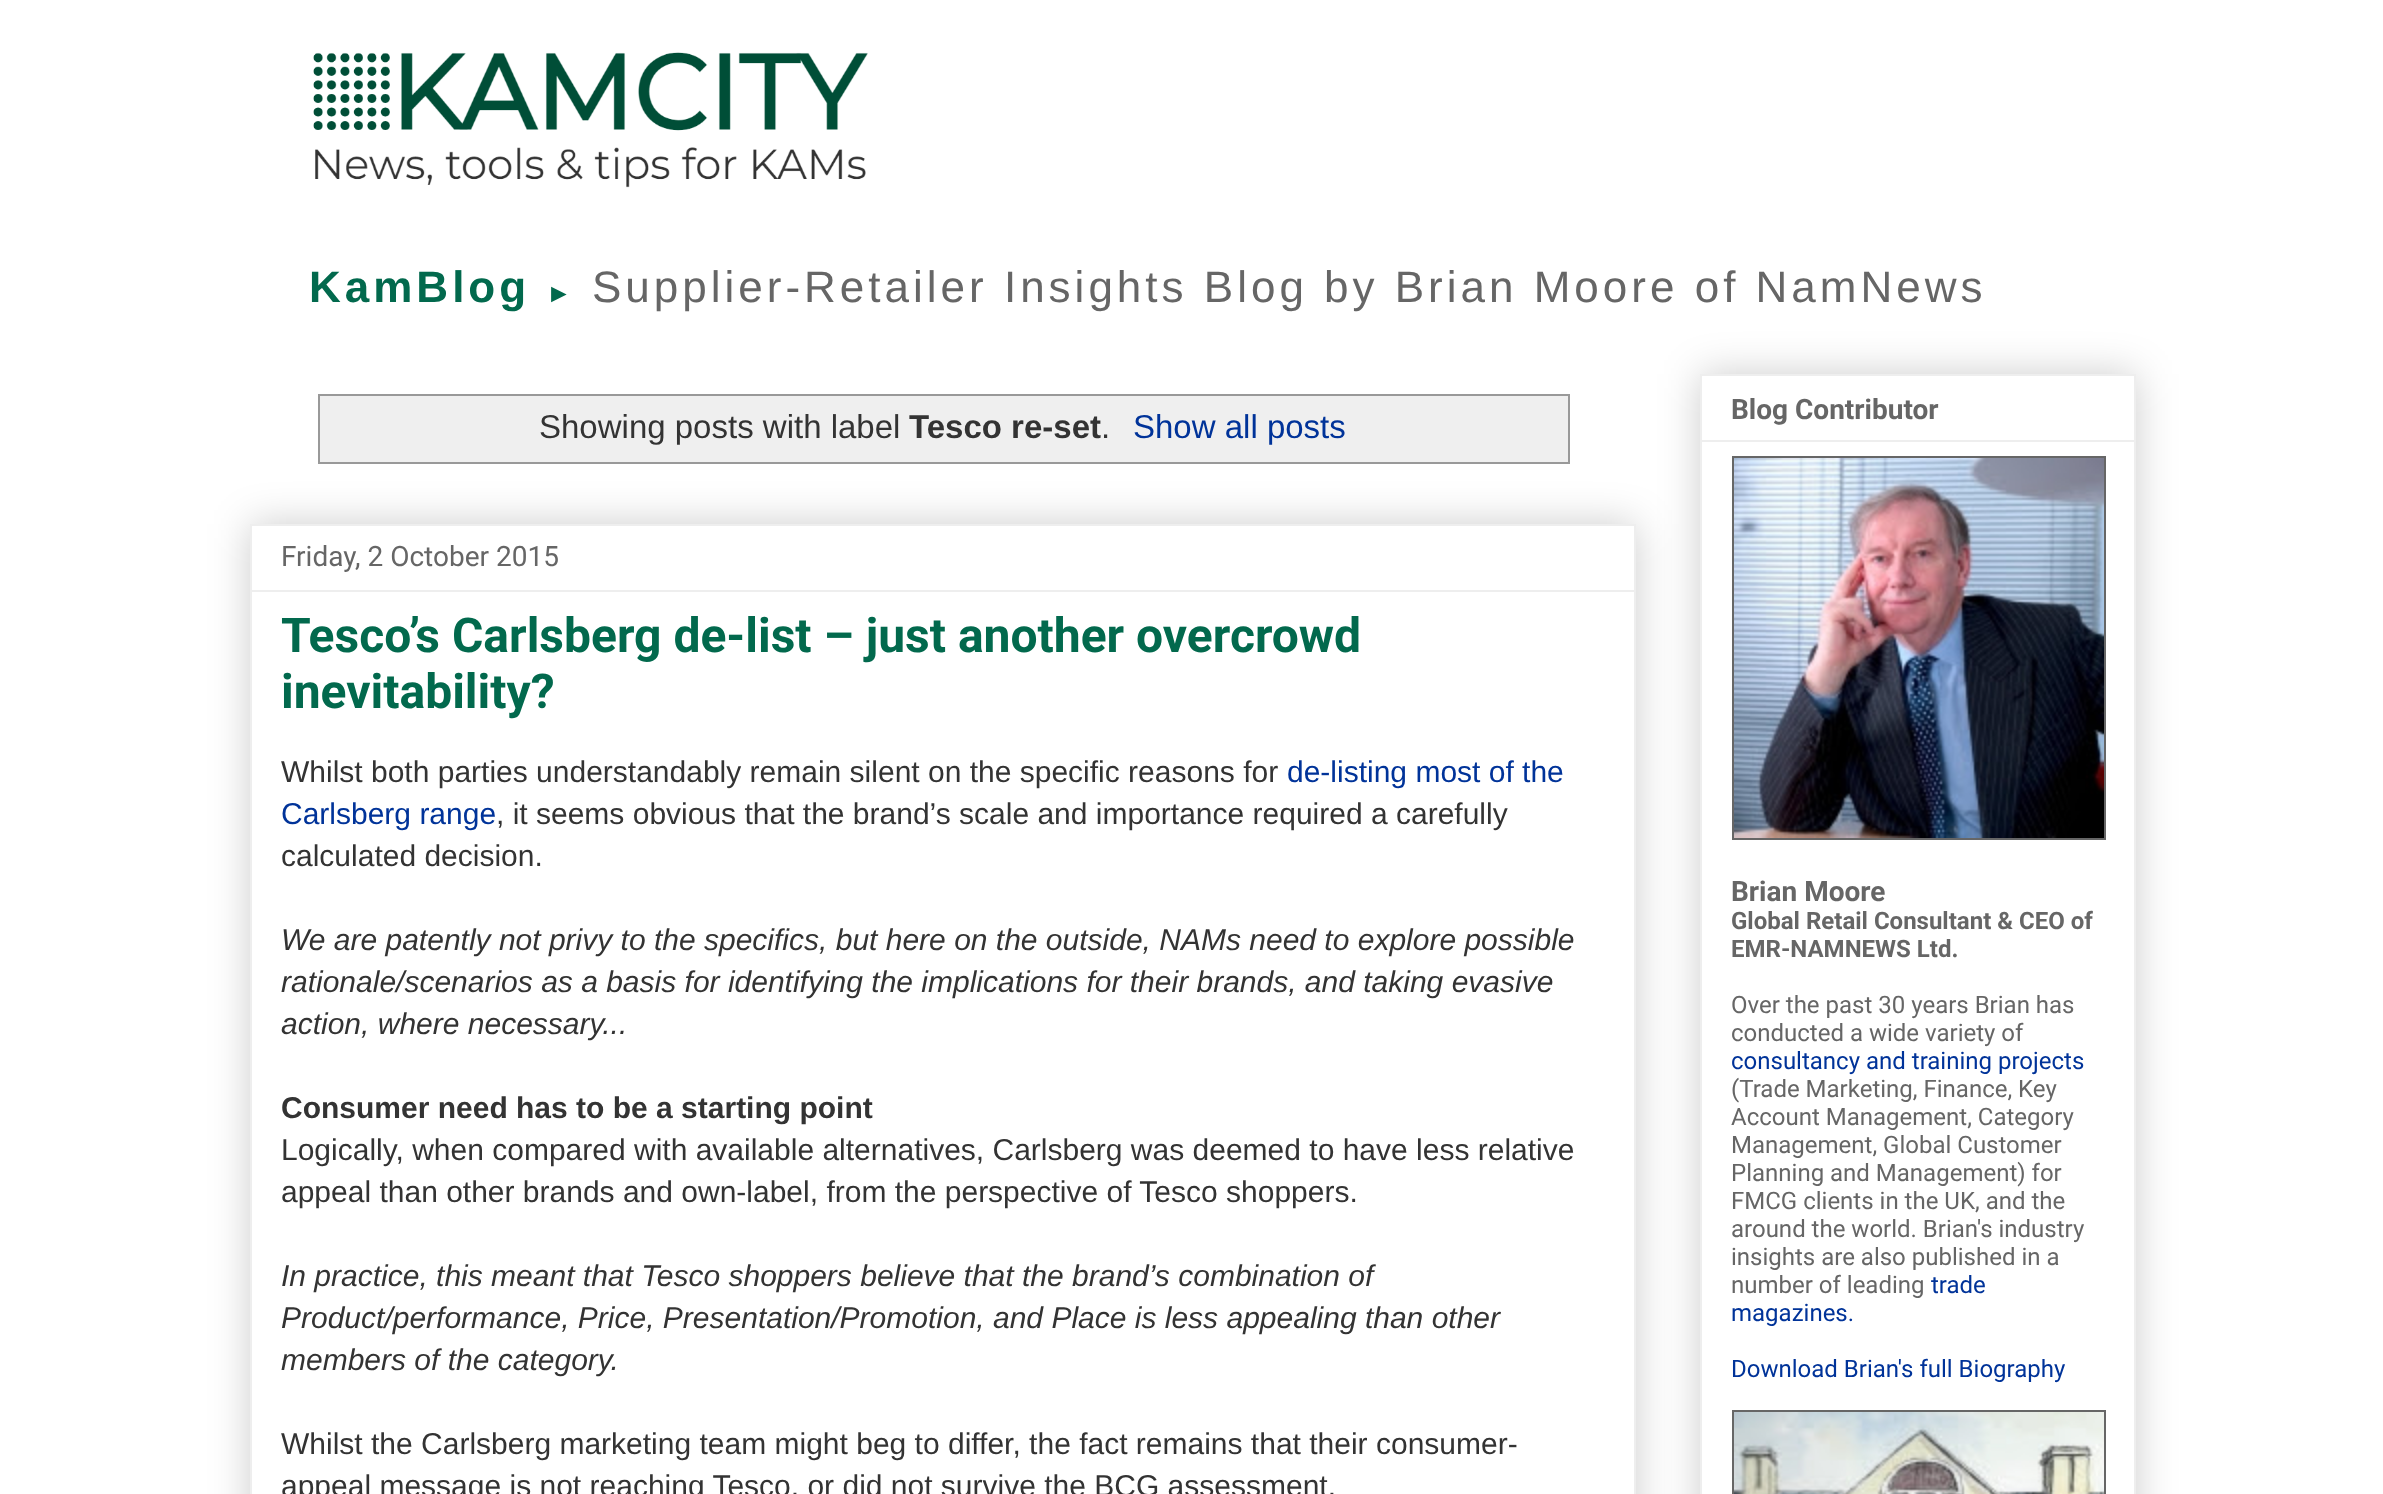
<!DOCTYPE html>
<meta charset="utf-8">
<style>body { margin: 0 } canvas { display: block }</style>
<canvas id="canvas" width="2383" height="1494"></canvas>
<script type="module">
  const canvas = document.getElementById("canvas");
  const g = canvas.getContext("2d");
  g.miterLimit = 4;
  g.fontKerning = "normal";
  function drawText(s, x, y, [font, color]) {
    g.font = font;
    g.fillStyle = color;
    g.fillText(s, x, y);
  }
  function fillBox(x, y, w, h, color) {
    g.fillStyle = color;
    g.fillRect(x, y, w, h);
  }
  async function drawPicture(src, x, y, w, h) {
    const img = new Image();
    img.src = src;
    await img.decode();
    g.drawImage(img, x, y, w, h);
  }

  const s1 = ["bold 44px Liberation Sans", "#02694D"];
  const s2 = ["bold 26px Liberation Sans", "#02694D"];
  const s3 = ["44px Liberation Sans", "#666666"];
  const s4 = ["33px Liberation Sans", "#333333"];
  const s5 = ["bold 33px Liberation Sans", "#333333"];
  const s6 = ["33px Liberation Sans", "#003399"];
  const s7 = ["28px Roboto", "#666666"];
  const s8 = ["bold 48px Roboto", "#02694D"];
  const s9 = ["30px Liberation Sans", "#333333"];
  const s10 = ["30px Liberation Sans", "#003399"];
  const s11 = ["italic 30px Liberation Sans", "#333333"];
  const s12 = ["bold 30px Liberation Sans", "#333333"];
  const s13 = ["bold 28px Roboto", "#666666"];
  const s14 = ["bold 24px Roboto", "#666666"];
  const s15 = ["24px Roboto", "#666666"];
  const s16 = ["24px Roboto", "#003399"];

  fillBox(0, 0, 2383, 1494, "#FFFFFF");
  await drawPicture("pic1.png", 313, 52, 555, 136);
  g.letterSpacing = "4px";
  drawText("KamBlog", 309, 302, s1);
  drawText("►", 546, 302, s2);
  drawText("Supplier-Retailer Insights Blog by Brian Moore of NamNews", 592, 302, s3);
  g.strokeStyle = "#999999";
  g.lineWidth = 2;
  g.strokeRect(319, 395, 1250, 68);
  fillBox(320, 396, 1248, 66, "#EFEFEF");
  g.letterSpacing = "0px";
  drawText("Showing posts with label", 539, 438, s4);
  drawText("Tesco re-set", 909, 438, s5);
  drawText(".", 1101, 438, s4);
  drawText("Show all posts", 1133, 438, s6);
  g.save();
  g.beginPath();
  g.moveTo(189, 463);
  g.lineTo(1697, 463);
  g.lineTo(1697, 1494);
  g.lineTo(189, 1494);
  g.closePath();
  g.moveTo(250, 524);
  g.lineTo(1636, 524);
  g.lineTo(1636, 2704);
  g.lineTo(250, 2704);
  g.closePath();
  g.clip("evenodd");
  g.fillStyle = "rgba(0, 0, 0, 0.2)";
  g.filter = "blur(20px)";
  g.beginPath();
  g.rect(250, 524, 1386, 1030);
  g.fill();
  g.filter = "none";
  g.restore();
  g.strokeStyle = "#EEEEEE";
  g.strokeRect(251, 525, 1384, 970);
  drawText("Friday, 2 October 2015", 281, 566, s7);
  fillBox(252, 590, 1382, 2, "#EEEEEE");
  drawText("Tesco’s Carlsberg de-list – just another overcrowd", 281, 652, s8);
  drawText("inevitability?", 281, 708, s8);
  drawText("Whilst both parties understandably remain silent on the specific reasons for", 281, 782, s9);
  drawText("de-listing most of the", 1287, 782, s10);
  drawText("Carlsberg range", 281, 824, s10);
  drawText(", it seems obvious that the brand’s scale and importance required a carefully", 496, 824, s9);
  drawText("calculated decision.", 281, 866, s9);
  drawText("We are patently not privy to the specifics, but here on the outside, NAMs need to explore possible", 281, 950, s11);
  drawText("rationale/scenarios as a basis for identifying the implications for their brands, and taking evasive", 281, 992, s11);
  drawText("action, where necessary...", 281, 1034, s11);
  drawText("Consumer need has to be a starting point", 281, 1118, s12);
  drawText("Logically, when compared with available alternatives, Carlsberg was deemed to have less relative", 281, 1160, s9);
  drawText("appeal than other brands and own-label, from the perspective of Tesco shoppers.", 281, 1202, s9);
  drawText("In practice, this meant that Tesco shoppers believe that the brand’s combination of", 281, 1286, s11);
  drawText("Product/performance, Price, Presentation/Promotion, and Place is less appealing than other", 281, 1328, s11);
  drawText("members of the category.", 281, 1370, s11);
  drawText("Whilst the Carlsberg marketing team might beg to differ, the fact remains that their consumer-", 281, 1454, s9);
  drawText("appeal message is not reaching Tesco, or did not survive the BCG assessment.", 281, 1496, s9);
  g.save();
  g.beginPath();
  g.moveTo(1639, 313);
  g.lineTo(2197, 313);
  g.lineTo(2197, 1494);
  g.lineTo(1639, 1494);
  g.closePath();
  g.moveTo(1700, 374);
  g.lineTo(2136, 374);
  g.lineTo(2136, 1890);
  g.lineTo(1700, 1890);
  g.closePath();
  g.clip("evenodd");
  g.fillStyle = "rgba(0, 0, 0, 0.2)";
  g.filter = "blur(20px)";
  g.beginPath();
  g.rect(1700, 374, 436, 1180);
  g.fill();
  g.filter = "none";
  g.restore();
  g.strokeRect(1701, 375, 434, 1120);
  drawText("Blog Contributor", 1731, 419, s13);
  fillBox(1702, 440, 432, 2, "#EEEEEE");
  g.strokeStyle = "#666666";
  g.strokeRect(1733, 457, 372, 382);
  await drawPicture("pic2.png", 1734, 458, 370, 380);
  drawText("Brian Moore", 1731, 901, s13);
  drawText("Global Retail Consultant & CEO of", 1731, 929, s14);
  drawText("EMR-NAMNEWS Ltd.", 1731, 957, s14);
  drawText("Over the past 30 years Brian has", 1731, 1013, s15);
  drawText("conducted a wide variety of", 1731, 1041, s15);
  drawText("consultancy and training projects", 1731, 1069, s16);
  drawText("(Trade Marketing, Finance, Key", 1731, 1097, s15);
  drawText("Account Management, Category", 1731, 1125, s15);
  drawText("Management, Global Customer", 1731, 1153, s15);
  drawText("Planning and Management) for", 1731, 1181, s15);
  drawText("FMCG clients in the UK, and the", 1731, 1209, s15);
  drawText("around the world. Brian's industry", 1731, 1237, s15);
  drawText("insights are also published in a", 1731, 1265, s15);
  drawText("number of leading", 1731, 1293, s15);
  drawText("trade", 1931, 1293, s16);
  drawText("magazines.", 1731, 1321, s16);
  drawText("Download Brian's full Biography", 1731, 1377, s16);
  g.strokeRect(1733, 1411, 372, 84);
  await drawPicture("pic3.png", 1734, 1412, 370, 82);
</script>
